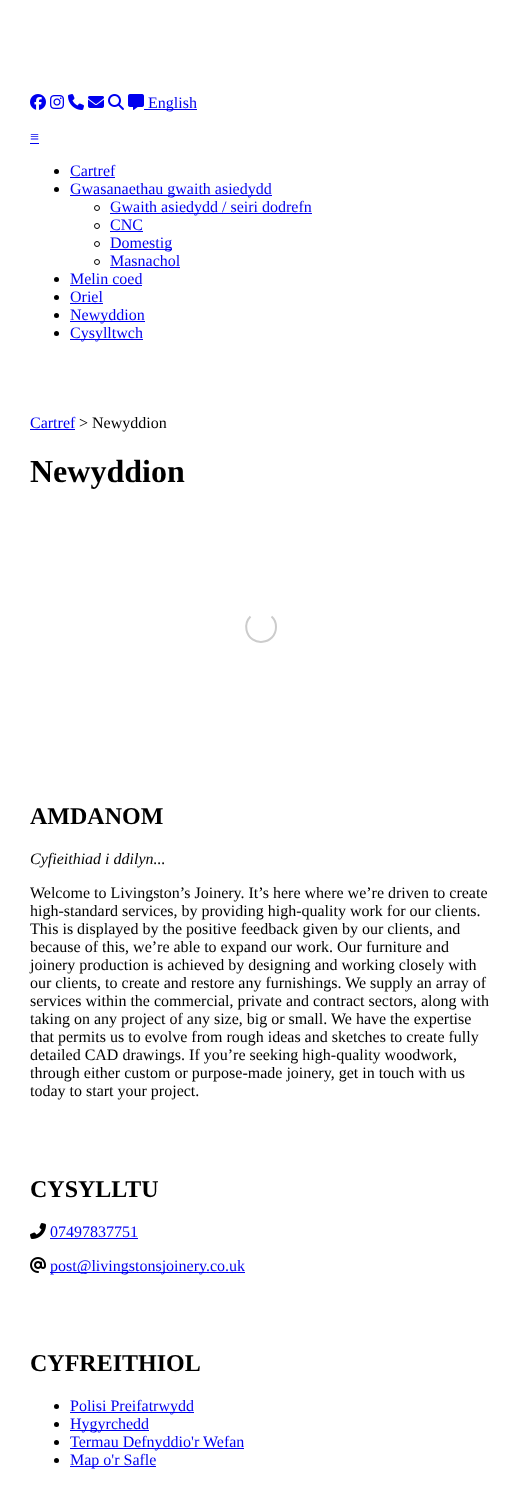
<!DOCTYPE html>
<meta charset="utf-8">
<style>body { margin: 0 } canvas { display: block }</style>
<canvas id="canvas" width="522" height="1488"></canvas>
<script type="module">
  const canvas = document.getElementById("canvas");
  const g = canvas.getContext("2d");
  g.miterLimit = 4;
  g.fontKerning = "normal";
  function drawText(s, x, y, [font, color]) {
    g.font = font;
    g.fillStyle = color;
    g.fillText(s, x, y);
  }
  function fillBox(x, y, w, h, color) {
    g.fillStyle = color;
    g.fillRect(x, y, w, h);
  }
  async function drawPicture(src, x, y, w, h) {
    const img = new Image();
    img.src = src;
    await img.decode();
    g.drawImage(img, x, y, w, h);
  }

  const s1 = ["16px Liberation Serif", "#0000EE"];
  const s2 = ["16px Liberation Serif", "#000000"];
  const s3 = ["bold 32px Liberation Serif", "#000000"];
  const s4 = ["bold 24px Liberation Serif", "#000000"];
  const s5 = ["italic 16px Liberation Serif", "#000000"];

  fillBox(0, 0, 522, 1488, "#FFFFFF");
  await drawPicture("pic1.png", 30, 94, 16, 16);
  await drawPicture("pic2.png", 50, 95, 14, 14);
  await drawPicture("pic3.png", 68, 94, 16, 16);
  await drawPicture("pic4.png", 88, 96, 16, 12);
  await drawPicture("pic5.png", 108, 94, 16, 16);
  await drawPicture("pic6.png", 128, 94, 16, 16);
  fillBox(144, 109, 53, 1, "#0000EE");
  drawText("English", 148, 108, s1);
  drawText("≡", 30, 142, s1);
  fillBox(30, 143, 9, 1, "#0000EE");
  g.fillStyle = "#000000";
  g.beginPath();
  g.arc(56.5, 171.5, 2.5, 0, Math.PI * 2);
  g.fill();
  drawText("Cartref", 70, 176, s1);
  fillBox(70, 177, 45, 1, "#0000EE");
  g.fillStyle = "#000000";
  g.beginPath();
  g.arc(56.5, 189.5, 2.5, 0, Math.PI * 2);
  g.fill();
  fillBox(70, 195, 202, 1, "#0000EE");
  drawText("Gwasanaethau gwaith asiedydd", 70, 194, s1);
  g.beginPath();
  g.arc(97, 208, 2.5, 0, Math.PI * 2);
  g.strokeStyle = "#000000";
  g.stroke();
  fillBox(110, 213, 202, 1, "#0000EE");
  drawText("Gwaith asiedydd / seiri dodrefn", 110, 212, s1);
  g.beginPath();
  g.arc(97, 226, 2.5, 0, Math.PI * 2);
  g.stroke();
  drawText("CNC", 110, 230, s1);
  fillBox(110, 231, 33, 1, "#0000EE");
  g.beginPath();
  g.arc(97, 244, 2.5, 0, Math.PI * 2);
  g.stroke();
  fillBox(110, 249, 62, 1, "#0000EE");
  drawText("Domestig", 110, 248, s1);
  g.beginPath();
  g.arc(97, 262, 2.5, 0, Math.PI * 2);
  g.stroke();
  drawText("Masnachol", 110, 266, s1);
  fillBox(110, 267, 70, 1, "#0000EE");
  g.fillStyle = "#000000";
  g.beginPath();
  g.arc(56.5, 279.5, 2.5, 0, Math.PI * 2);
  g.fill();
  drawText("Melin coed", 70, 284, s1);
  fillBox(70, 285, 72, 1, "#0000EE");
  g.fillStyle = "#000000";
  g.beginPath();
  g.arc(56.5, 297.5, 2.5, 0, Math.PI * 2);
  g.fill();
  drawText("Oriel", 70, 302, s1);
  fillBox(70, 303, 33, 1, "#0000EE");
  g.fillStyle = "#000000";
  g.beginPath();
  g.arc(56.5, 315.5, 2.5, 0, Math.PI * 2);
  g.fill();
  fillBox(70, 321, 75, 1, "#0000EE");
  drawText("Newyddion", 70, 320, s1);
  g.fillStyle = "#000000";
  g.beginPath();
  g.arc(56.5, 333.5, 2.5, 0, Math.PI * 2);
  g.fill();
  fillBox(70, 339, 73, 1, "#0000EE");
  drawText("Cysylltwch", 70, 338, s1);
  drawText("Cartref", 30, 428, s1);
  fillBox(30, 429, 45, 1, "#0000EE");
  drawText("> Newyddion", 79, 428, s2);
  drawText("Newyddion", 30, 482, s3);
  g.beginPath();
  g.moveTo(271.5, 616.5);
  g.bezierCurveTo(274.5, 619, 276, 623, 276, 627);
  g.bezierCurveTo(276, 645, 250, 647.5, 246.5, 630);
  g.bezierCurveTo(245.5, 625, 247, 620, 250.5, 616.5);
  g.strokeStyle = "#CCCCCC";
  g.lineWidth = 2;
  g.stroke();
  drawText("AMDANOM", 30, 824, s4);
  drawText("Cyfieithiad i ddilyn...", 30, 864, s5);
  drawText("Welcome to Livingston’s Joinery. It’s here where we’re driven to create", 30, 898, s2);
  drawText("high-standard services, by providing high-quality work for our clients.", 30, 916, s2);
  drawText("This is displayed by the positive feedback given by our clients, and", 30, 934, s2);
  drawText("because of this, we’re able to expand our work. Our furniture and", 30, 952, s2);
  drawText("joinery production is achieved by designing and working closely with", 30, 970, s2);
  drawText("our clients, to create and restore any furnishings. We supply an array of", 30, 988, s2);
  drawText("services within the commercial, private and contract sectors, along with", 30, 1006, s2);
  drawText("taking on any project of any size, big or small. We have the expertise", 30, 1024, s2);
  drawText("that permits us to evolve from rough ideas and sketches to create fully", 30, 1042, s2);
  drawText("detailed CAD drawings. If you’re seeking high-quality woodwork,", 30, 1060, s2);
  drawText("through either custom or purpose-made joinery, get in touch with us", 30, 1078, s2);
  drawText("today to start your project.", 30, 1096, s2);
  drawText("CYSYLLTU", 30, 1197, s4);
  await drawPicture("pic7.png", 30, 1223, 16, 16);
  drawText("07497837751", 50, 1237, s1);
  fillBox(50, 1238, 88, 1, "#0000EE");
  await drawPicture("pic8.png", 30, 1257, 16, 16);
  fillBox(50, 1272, 195, 1, "#0000EE");
  drawText("post@livingstonsjoinery.co.uk", 50, 1271, s1);
  drawText("CYFREITHIOL", 30, 1371, s4);
  g.beginPath();
  g.arc(56.5, 1406.5, 2.5, 0, Math.PI * 2);
  g.fill();
  fillBox(70, 1412, 124, 1, "#0000EE");
  drawText("Polisi Preifatrwydd", 70, 1411, s1);
  g.fillStyle = "#000000";
  g.beginPath();
  g.arc(56.5, 1424.5, 2.5, 0, Math.PI * 2);
  g.fill();
  fillBox(70, 1430, 79, 1, "#0000EE");
  drawText("Hygyrchedd", 70, 1429, s1);
  g.fillStyle = "#000000";
  g.beginPath();
  g.arc(56.5, 1442.5, 2.5, 0, Math.PI * 2);
  g.fill();
  fillBox(70, 1448, 174, 1, "#0000EE");
  drawText("Termau Defnyddio'r Wefan", 70, 1447, s1);
  g.fillStyle = "#000000";
  g.beginPath();
  g.arc(56.5, 1460.5, 2.5, 0, Math.PI * 2);
  g.fill();
  fillBox(70, 1466, 86, 1, "#0000EE");
  drawText("Map o'r Safle", 70, 1465, s1);
</script>
